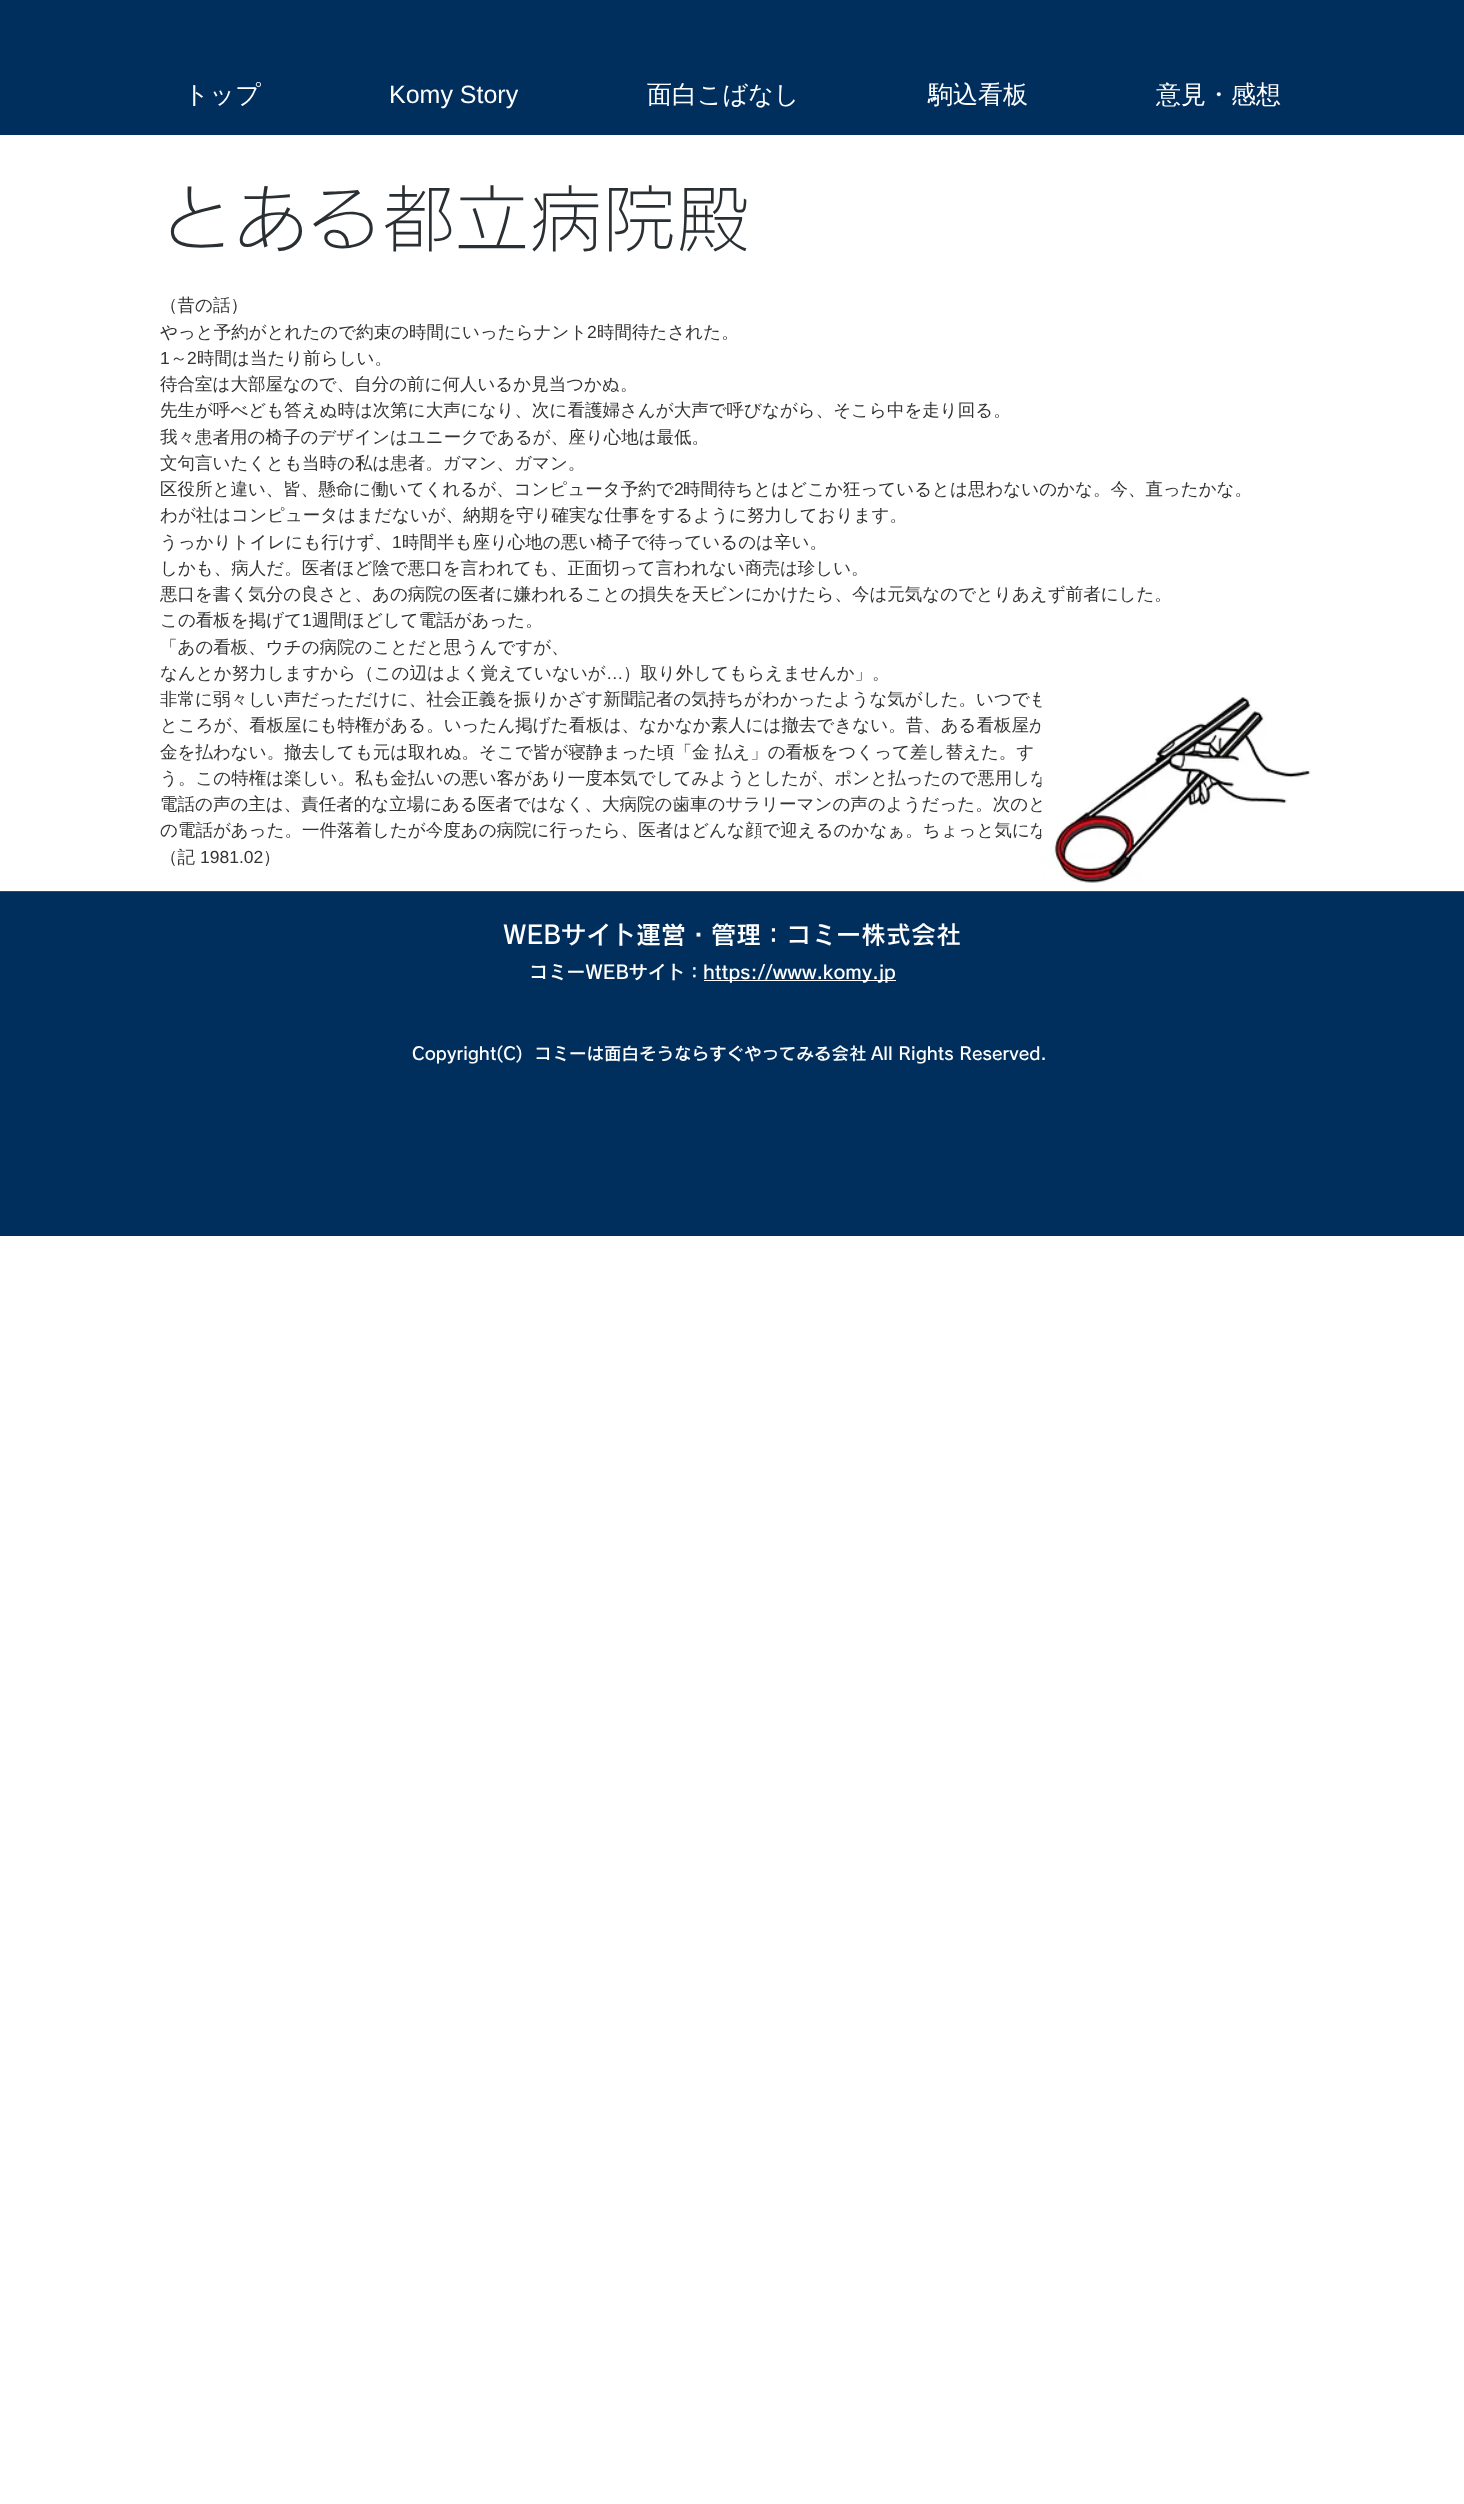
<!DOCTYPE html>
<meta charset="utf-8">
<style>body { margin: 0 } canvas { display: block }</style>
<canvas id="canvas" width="1464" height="2504"></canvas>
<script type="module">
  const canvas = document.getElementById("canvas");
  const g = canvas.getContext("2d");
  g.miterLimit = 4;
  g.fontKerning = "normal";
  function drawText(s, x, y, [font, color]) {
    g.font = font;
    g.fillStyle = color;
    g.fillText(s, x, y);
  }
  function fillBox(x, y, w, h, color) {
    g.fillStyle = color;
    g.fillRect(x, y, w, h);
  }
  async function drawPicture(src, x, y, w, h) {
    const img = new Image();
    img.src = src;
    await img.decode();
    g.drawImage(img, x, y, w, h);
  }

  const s1 = ["500 25px WenQuanYi Zen Hei", "#FFFFFF"];
  const s2 = ["25px Liberation Sans", "#FFFFFF"];
  const s3 = ["300 73.75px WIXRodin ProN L", "#292F33"];
  const s4 = ["500 17.5px WenQuanYi Zen Hei", "#333333"];
  const s5 = ["17.5px Liberation Sans", "#333333"];
  const s6 = ["600 25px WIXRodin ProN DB", "#FFFFFF"];
  const s7 = ["600 18.75px WIXRodin ProN DB", "#FFFFFF"];
  const s8 = ["600 17.5px WIXRodin ProN DB", "#FFFFFF"];

  fillBox(0, 0, 1464, 2504, "#FFFFFF");
  fillBox(0, 0, 1464, 135, "#002E5D");
  drawText("トップ", 184, 103, s1);
  drawText("Komy Story", 389, 103, s2);
  drawText("面白こばなし", 647, 103, s1);
  drawText("駒込看板", 928, 103, s1);
  drawText("意見・感想", 1156, 103, s1);
  drawText("とある都立病院殿", 160, 246, s3);
  drawText("（昔の話）", 160, 311, s4);
  drawText("やっと予約がとれたので約束の時間にいったらナント", 160, 338, s4);
  drawText("2", 587, 338, s5);
  drawText("時間待たされた。", 597, 338, s4);
  drawText("1", 160, 364, s5);
  drawText("～", 170, 364, s4);
  drawText("2", 187, 364, s5);
  drawText("時間は当たり前らしい。", 197, 364, s4);
  drawText("待合室は大部屋なので、自分の前に何人いるか見当つかぬ。", 160, 390, s4);
  drawText("先生が呼べども答えぬ時は次第に大声になり、次に看護婦さんが大声で呼びながら、そこら中を走り回る。", 160, 416, s4);
  drawText("我々患者用の椅子のデザインはユニークであるが、座り心地は最低。", 160, 443, s4);
  drawText("文句言いたくとも当時の私は患者。ガマン、ガマン。", 160, 469, s4);
  drawText("区役所と違い、皆、懸命に働いてくれるが、コンピュータ予約で", 160, 495, s4);
  drawText("2", 674, 495, s5);
  drawText("時間待ちとはどこか狂っているとは思わないのかな。今、直ったかな。", 683, 495, s4);
  drawText("わが社はコンピュータはまだないが、納期を守り確実な仕事をするように努力しております。", 160, 521, s4);
  drawText("うっかりトイレにも行けず、", 160, 548, s4);
  drawText("1", 392, 548, s5);
  drawText("時間半も座り心地の悪い椅子で待っているのは辛い。", 402, 548, s4);
  drawText("しかも、病人だ。医者ほど陰で悪口を言われても、正面切って言われない商売は珍しい。", 160, 574, s4);
  drawText("悪口を書く気分の良さと、あの病院の医者に嫌われることの損失を天ビンにかけたら、今は元気なのでとりあえず前者にした。", 160, 600, s4);
  drawText("この看板を掲げて", 160, 626, s4);
  drawText("1", 302, 626, s5);
  drawText("週間ほどして電話があった。", 312, 626, s4);
  drawText("「あの看板、ウチの病院のことだと思うんですが、", 160, 653, s4);
  drawText("なんとか努力しますから（この辺はよく覚えていないが", 160, 679, s4);
  drawText("…", 606, 679, s5);
  drawText("）取り外してもらえませんか」。", 623, 679, s4);
  drawText("非常に弱々しい声だっただけに、社会正義を振りかざす新聞記者の気持ちがわかったような気がした。いつでも", 160, 705, s4);
  drawText("ところが、看板屋にも特権がある。いったん掲げた看板は、なかなか素人には撤去できない。昔、ある看板屋が", 160, 731, s4);
  drawText("金を払わない。撤去しても元は取れぬ。そこで皆が寝静まった頃「金 払え」の看板をつくって差し替えた。す", 160, 758, s4);
  drawText("う。この特権は楽しい。私も金払いの悪い客があり一度本気でしてみようとしたが、ポンと払ったので悪用しな", 160, 784, s4);
  drawText("電話の声の主は、責任者的な立場にある医者ではなく、大病院の歯車のサラリーマンの声のようだった。次のと", 160, 810, s4);
  drawText("の電話があった。一件落着したが今度あの病院に行ったら、医者はどんな顔で迎えるのかなぁ。ちょっと気にな", 160, 836, s4);
  drawText("（記", 160, 863, s4);
  drawText("1981.02", 200, 863, s5);
  drawText("）", 263, 863, s4);
  await drawPicture("pic1.png", 1041, 690, 271, 193);
  fillBox(0, 892, 1464, 344, "#002E5D");
  fillBox(0, 891, 1464, 1, "#264D75");
  drawText("WEBサイト運営・管理：コミー株式会社", 503, 944, s6);
  drawText("コミーWEBサイト：", 529, 979, s7);
  fillBox(704, 980, 192, 1, "#FFFFFF");
  drawText("https://www.komy.jp", 703, 979, s7);
  drawText("Copyright(C)", 412, 1060, s8);
  drawText("コミーは面白そうならすぐやってみる会社", 534, 1060, s8);
  drawText("All Rights Reserved.", 871, 1060, s8);
</script>
